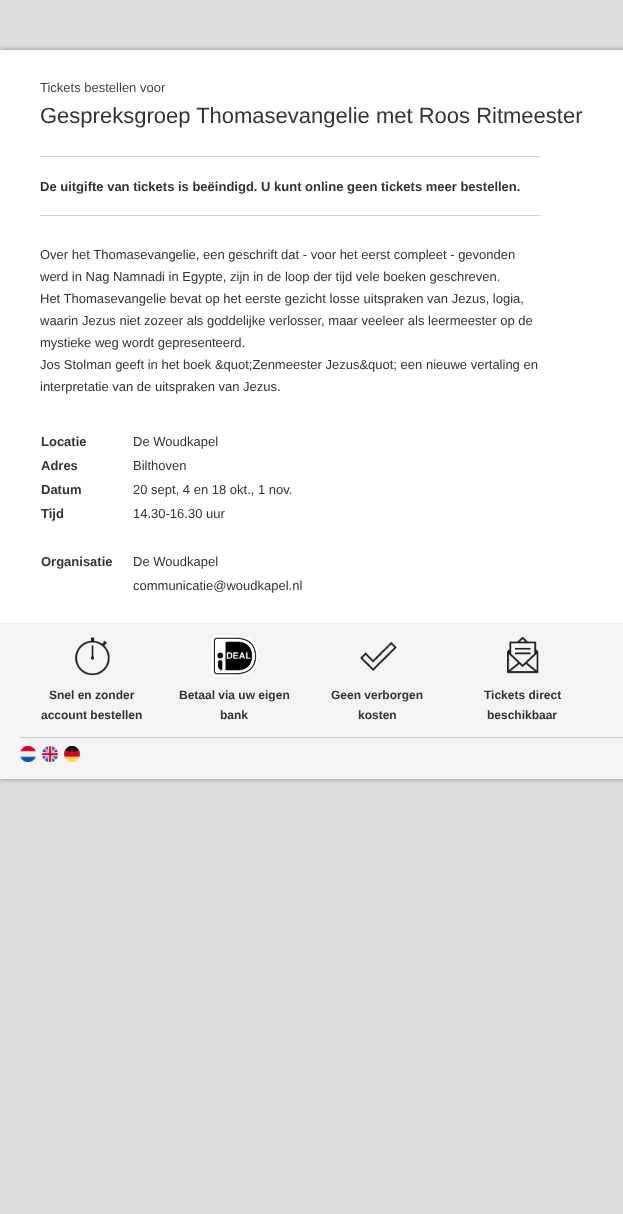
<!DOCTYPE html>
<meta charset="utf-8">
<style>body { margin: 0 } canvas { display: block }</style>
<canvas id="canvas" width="623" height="1214"></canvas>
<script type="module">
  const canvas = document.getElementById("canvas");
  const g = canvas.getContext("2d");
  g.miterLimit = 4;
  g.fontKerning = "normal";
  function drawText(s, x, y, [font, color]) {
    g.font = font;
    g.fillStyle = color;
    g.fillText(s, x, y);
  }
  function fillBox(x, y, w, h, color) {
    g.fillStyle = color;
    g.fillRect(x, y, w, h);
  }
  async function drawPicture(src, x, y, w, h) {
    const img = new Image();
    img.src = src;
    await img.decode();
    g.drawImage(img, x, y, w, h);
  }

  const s1 = ["13px Liberation Sans", "#444444"];
  const s2 = ["22px Liberation Sans", "#333333"];
  const s3 = ["bold 13px Liberation Sans", "#333333"];
  const s4 = ["13px Liberation Sans", "#333333"];
  const s5 = ["bold 12px Liberation Sans", "#333333"];

  fillBox(0, 0, 623, 1214, "#DDDDDD");
  g.fillStyle = "#888888";
  g.filter = "blur(2.5px)";
  g.beginPath();
  g.rect(0, 50, 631, 729);
  g.fill();
  g.filter = "none";
  fillBox(0, 50, 623, 729, "#FFFFFF");
  drawText("Tickets bestellen voor", 40, 92, s1);
  drawText("Gespreksgroep Thomasevangelie met Roos Ritmeester", 40, 123, s2);
  fillBox(40, 156, 500, 1, "#CCCCCC");
  fillBox(40, 215, 500, 1, "#CCCCCC");
  drawText("De uitgifte van tickets is beëindigd. U kunt online geen tickets meer bestellen.", 40, 191, s3);
  drawText("Over het Thomasevangelie, een geschrift dat - voor het eerst compleet - gevonden", 40, 259, s4);
  drawText("werd in Nag Namnadi in Egypte, zijn in de loop der tijd vele boeken geschreven.", 40, 281, s4);
  drawText("Het Thomasevangelie bevat op het eerste gezicht losse uitspraken van Jezus, logia,", 40, 303, s4);
  drawText("waarin Jezus niet zozeer als goddelijke verlosser, maar veeleer als leermeester op de", 40, 325, s4);
  drawText("mystieke weg wordt gepresenteerd.", 40, 347, s4);
  drawText("Jos Stolman geeft in het boek &quot;Zenmeester Jezus&quot; een nieuwe vertaling en", 40, 369, s4);
  drawText("interpretatie van de uitspraken van Jezus.", 40, 391, s4);
  drawText("Locatie", 41, 446, s3);
  drawText("De Woudkapel", 133, 446, s4);
  drawText("Adres", 41, 470, s3);
  drawText("Bilthoven", 133, 470, s4);
  drawText("Datum", 41, 494, s3);
  drawText("20 sept, 4 en 18 okt., 1 nov.", 133, 494, s4);
  drawText("Tijd", 41, 518, s3);
  drawText("14.30-16.30 uur", 133, 518, s4);
  drawText("Organisatie", 41, 566, s3);
  drawText("De Woudkapel", 133, 566, s4);
  drawText("communicatie@woudkapel.nl", 133, 590, s4);
  fillBox(0, 623, 623, 155, "#F4F4F4");
  await drawPicture("pic1.png", 74, 637, 36, 39);
  drawText("Snel en zonder", 49, 699, s5);
  drawText("account bestellen", 41, 719, s5);
  await drawPicture("pic2.png", 211, 634, 48, 44);
  drawText("Betaal via uw eigen", 179, 699, s5);
  drawText("bank", 220, 719, s5);
  await drawPicture("pic3.png", 360, 641, 37, 31);
  drawText("Geen verborgen", 331, 699, s5);
  drawText("kosten", 358, 719, s5);
  await drawPicture("pic4.png", 507, 636, 32, 38);
  drawText("Tickets direct", 484, 699, s5);
  drawText("beschikbaar", 487, 719, s5);
  fillBox(20, 737, 603, 1, "#CCCCCC");
  await drawPicture("pic5.png", 20, 746, 16, 16);
  await drawPicture("pic6.png", 42, 746, 16, 16);
  await drawPicture("pic7.png", 64, 746, 16, 16);
</script>
